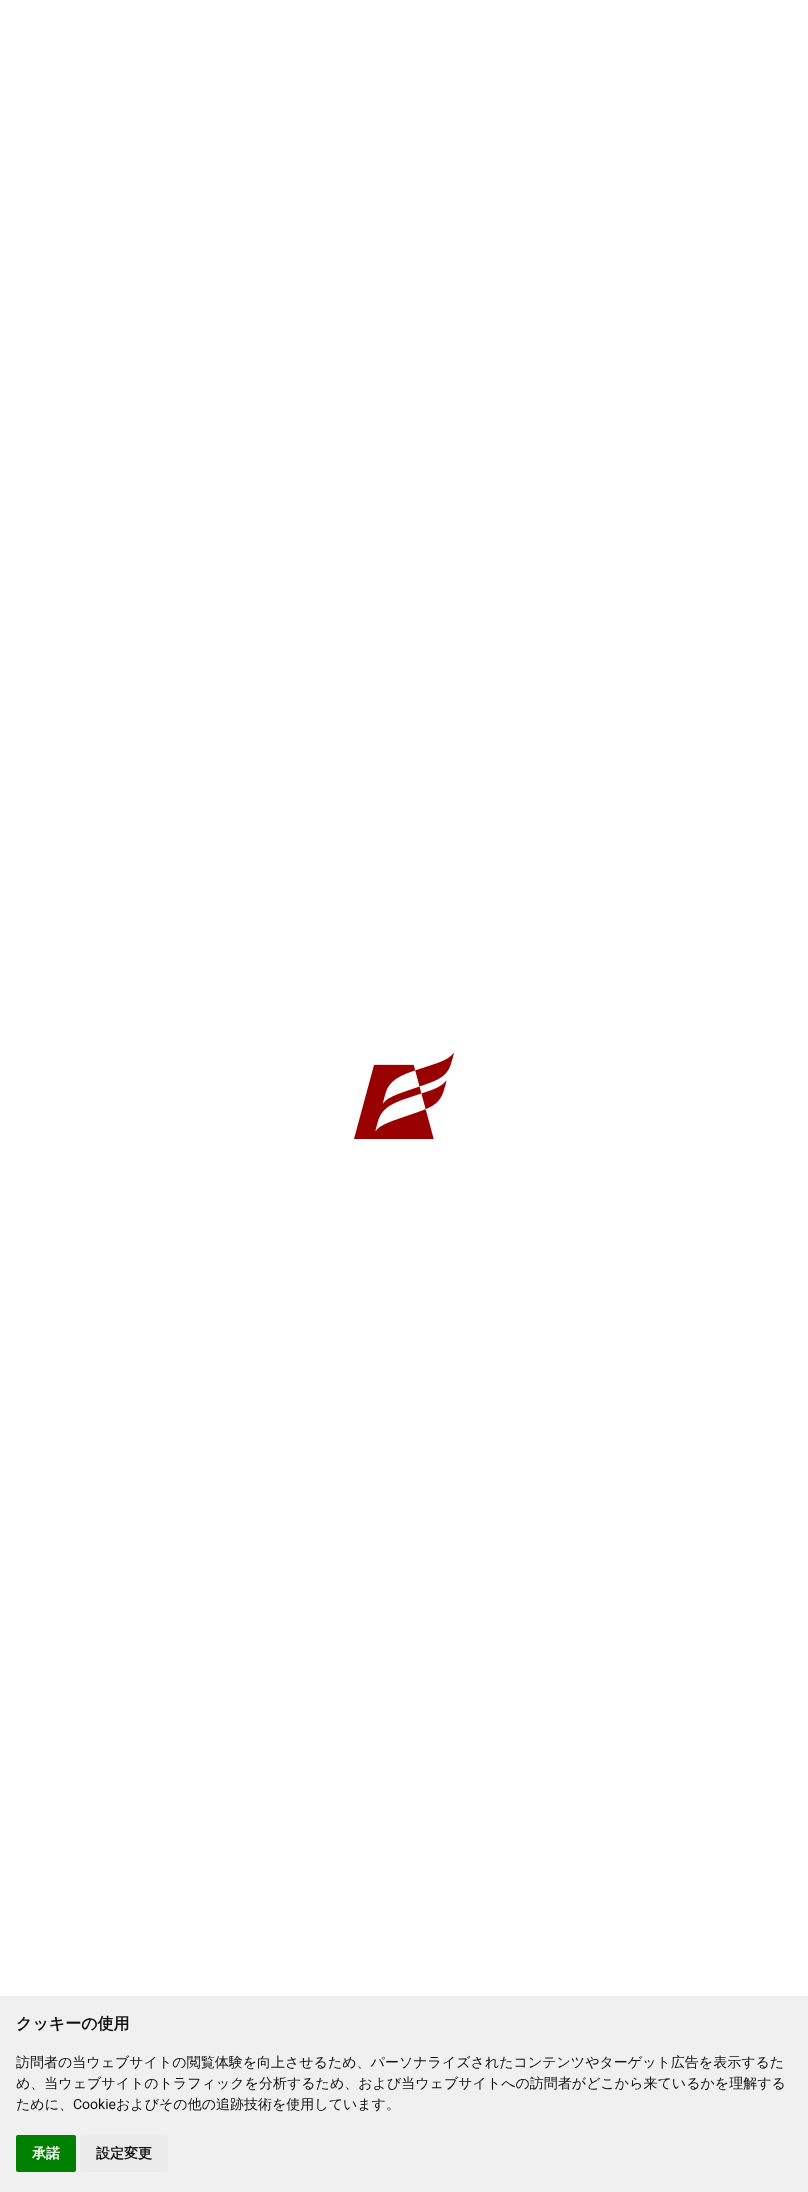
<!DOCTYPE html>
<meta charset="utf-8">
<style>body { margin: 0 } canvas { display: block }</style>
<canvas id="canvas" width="808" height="2192"></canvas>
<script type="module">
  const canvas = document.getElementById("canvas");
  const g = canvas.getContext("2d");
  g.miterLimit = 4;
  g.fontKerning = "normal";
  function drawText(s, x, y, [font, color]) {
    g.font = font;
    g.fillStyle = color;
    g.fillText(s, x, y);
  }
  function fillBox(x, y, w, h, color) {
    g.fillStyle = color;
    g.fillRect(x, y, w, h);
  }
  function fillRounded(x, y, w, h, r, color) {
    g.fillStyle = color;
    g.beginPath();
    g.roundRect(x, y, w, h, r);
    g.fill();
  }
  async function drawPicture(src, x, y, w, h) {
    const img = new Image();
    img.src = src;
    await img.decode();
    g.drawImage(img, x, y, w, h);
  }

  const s1 = ["bold 16px WenQuanYi Zen Hei", "#111111"];
  const s2 = ["500 14px WenQuanYi Zen Hei", "#111111"];
  const s3 = ["14px Roboto", "#111111"];
  const s4 = ["bold 14px WenQuanYi Zen Hei", "#FFFFFF"];
  const s5 = ["bold 14px WenQuanYi Zen Hei", "#111111"];

  fillBox(0, 0, 808, 2192, "#FFFFFF");
  await drawPicture("pic1.png", 354, 1053, 100, 86);
  fillBox(0, 1996, 808, 196, "#F0F0F0");
  drawText("クッキーの使用", 16, 2029, s1);
  drawText("訪問者の当ウェブサイトの閲覧体験を向上させるため、パーソナライズされたコンテンツやターゲット広告を表示するた", 16, 2067, s2);
  drawText("め、当ウェブサイトのトラフィックを分析するため、および当ウェブサイトへの訪問者がどこから来ているかを理解する", 16, 2088, s2);
  drawText("ために、", 16, 2109, s2);
  drawText("Cookie", 73, 2109, s3);
  drawText("およびその他の追跡技術を使用しています。", 116, 2109, s2);
  fillRounded(16, 2135, 60, 37, 2, "#008000");
  drawText("承諾", 32, 2158, s4);
  fillRounded(80, 2135, 88, 37, 2, "#EAEAEA");
  drawText("設定変更", 96, 2158, s5);
</script>
